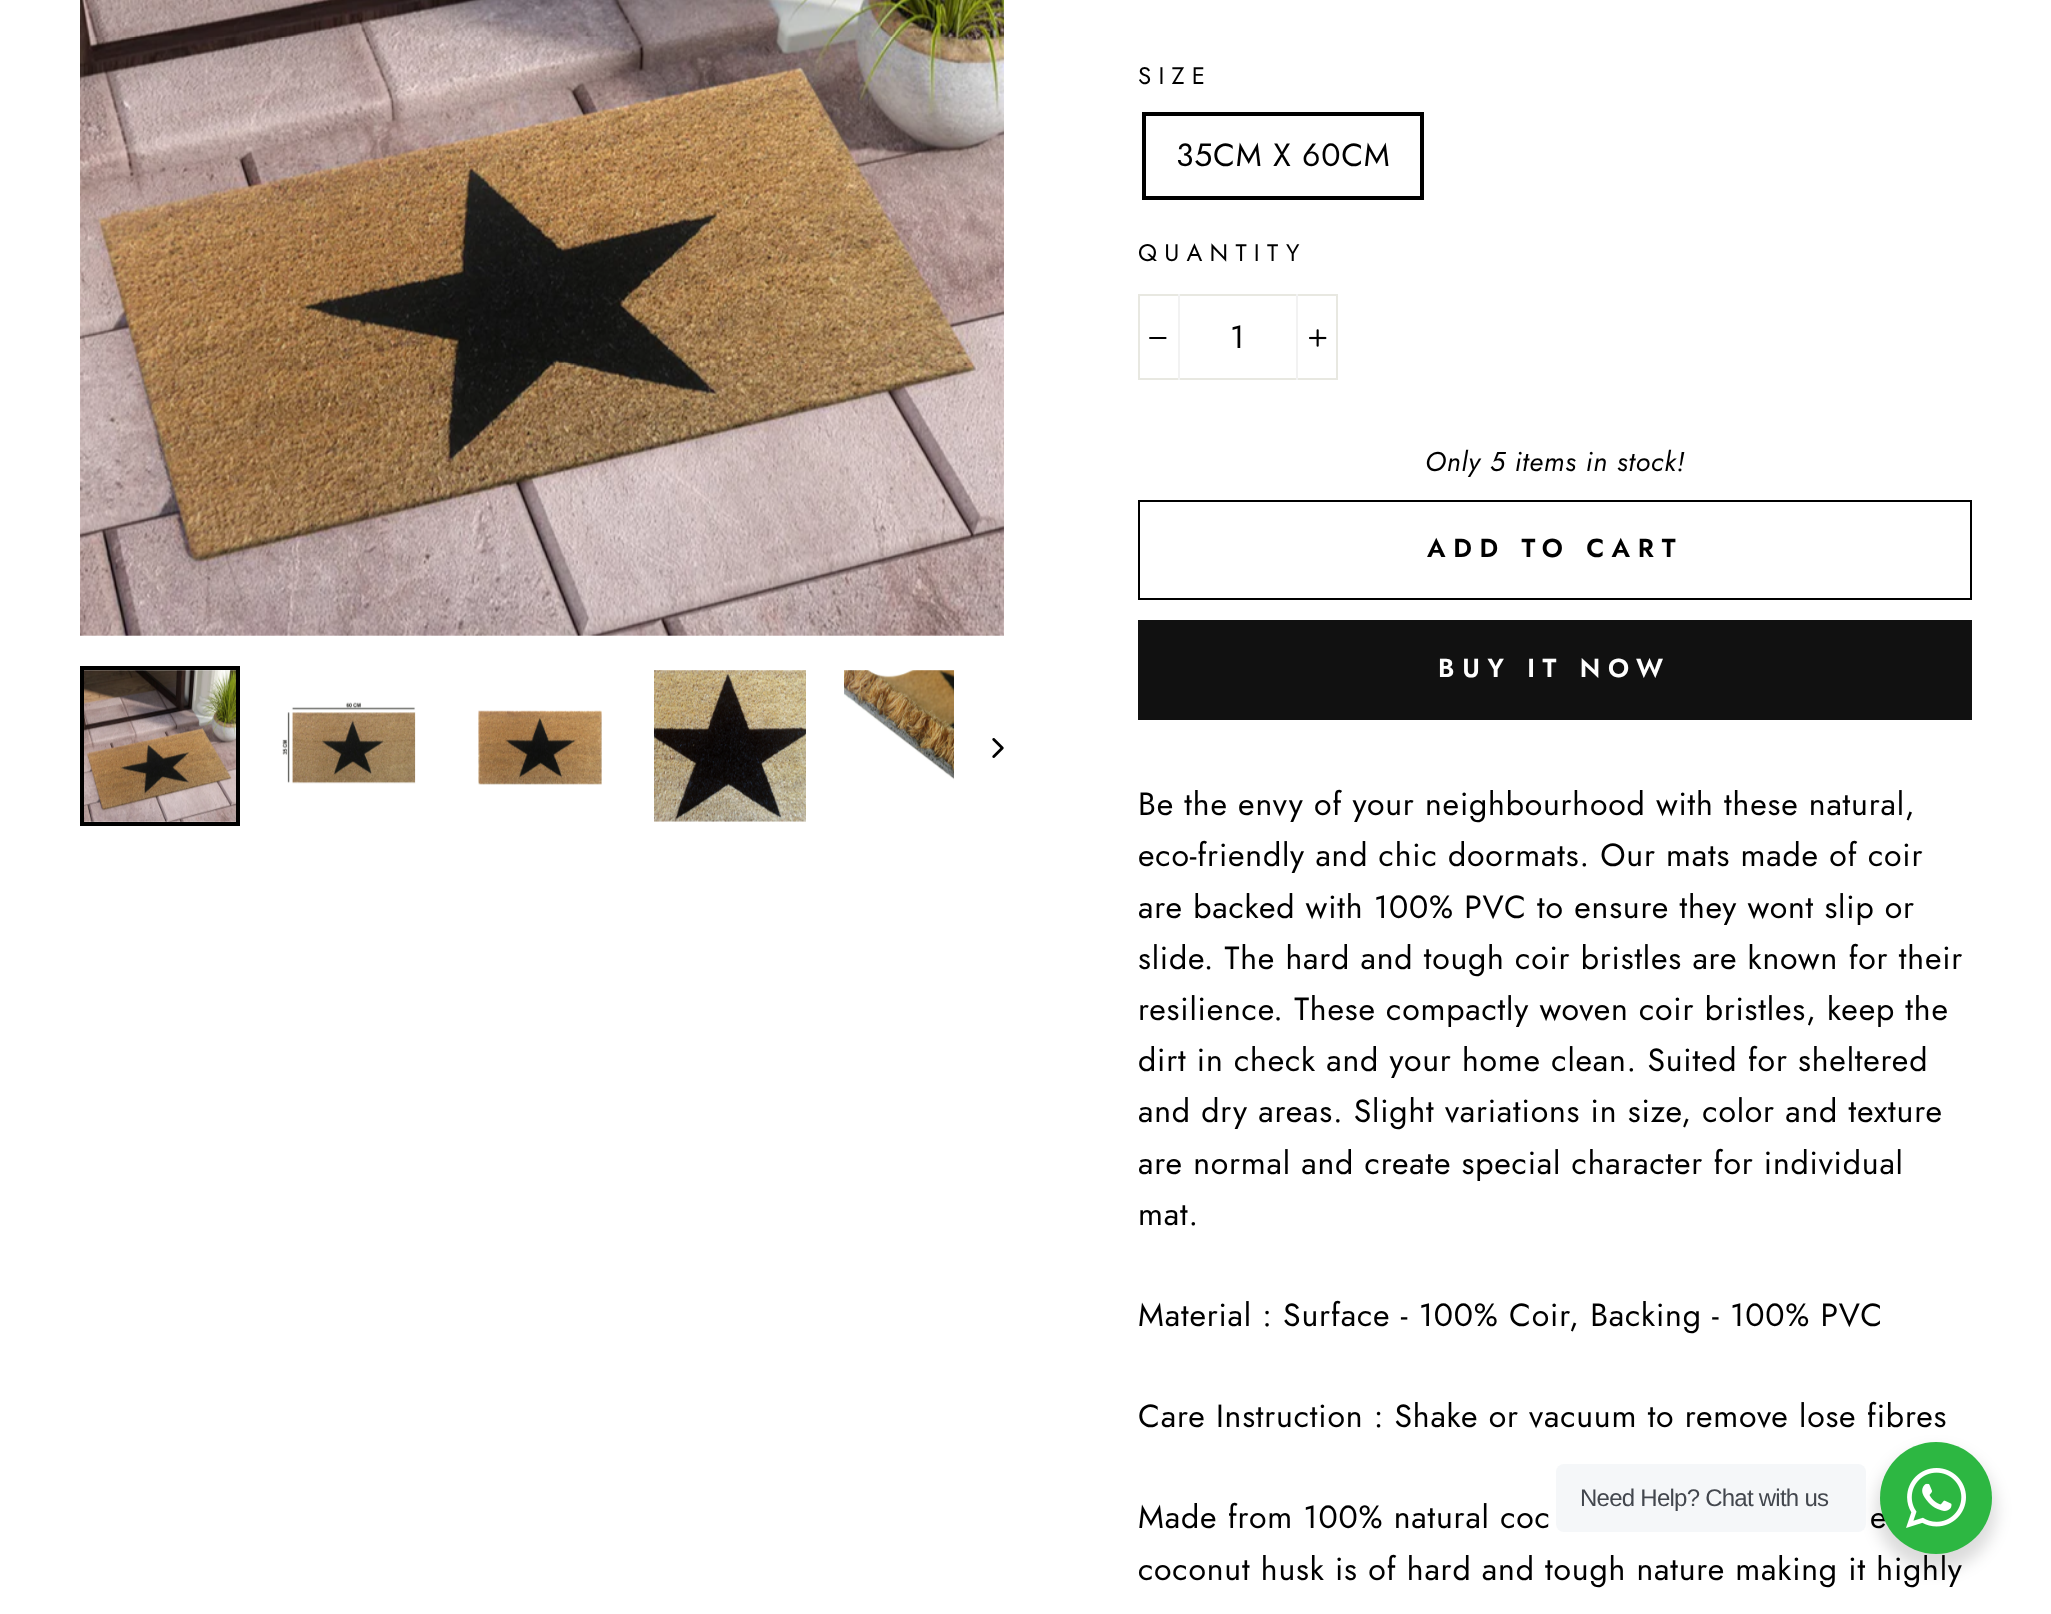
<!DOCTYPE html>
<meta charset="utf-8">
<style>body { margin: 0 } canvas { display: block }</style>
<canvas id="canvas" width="2051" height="1614"></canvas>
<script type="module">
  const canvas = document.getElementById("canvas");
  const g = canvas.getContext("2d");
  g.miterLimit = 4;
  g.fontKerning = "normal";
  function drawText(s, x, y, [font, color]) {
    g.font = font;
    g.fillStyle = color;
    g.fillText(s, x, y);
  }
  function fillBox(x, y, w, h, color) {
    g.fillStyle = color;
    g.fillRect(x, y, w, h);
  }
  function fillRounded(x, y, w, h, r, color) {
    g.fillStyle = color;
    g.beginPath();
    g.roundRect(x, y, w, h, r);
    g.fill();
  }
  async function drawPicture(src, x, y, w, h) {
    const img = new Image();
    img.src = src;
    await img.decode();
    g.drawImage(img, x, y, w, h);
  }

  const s1 = ["24px Jost", "#000000"];
  const s2 = ["32px Jost", "#000000"];
  const s3 = ["italic 27.25px Jost", "#000000"];
  const s4 = ["600 26px Jost", "#000000"];
  const s5 = ["600 26px Jost", "#FFFFFF"];
  const s6 = ["24px Liberation Sans", "#43474E"];

  fillBox(0, 0, 2051, 1614, "#FFFFFF");
  await drawPicture("pic1.png", 80, 0, 924, 636);
  g.strokeStyle = "#000000";
  g.lineWidth = 4;
  g.strokeRect(82, 668, 156, 156);
  await drawPicture("pic2.png", 84, 670, 152, 152);
  await drawPicture("pic3.png", 282, 702, 134, 82);
  await drawPicture("pic4.png", 478, 710, 124, 75);
  await drawPicture("pic5.png", 654, 670, 152, 152);
  await drawPicture("pic6.png", 844, 670, 110, 142);
  await drawPicture("pic7.png", 992, 738, 12, 20);
  g.letterSpacing = "7.25px";
  drawText("SIZE", 1138, 84, s1);
  g.strokeRect(1144, 114, 278, 84);
  g.letterSpacing = "0.8px";
  drawText("35CM X 60CM", 1176, 166, s2);
  g.letterSpacing = "7.25px";
  drawText("QUANTITY", 1138, 261, s1);
  g.strokeStyle = "#E8E8E1";
  g.lineWidth = 2;
  g.strokeRect(1139, 295, 198, 84);
  fillBox(1178, 294, 2, 86, "#F2F2F2");
  await drawPicture("pic8.png", 1149, 337, 18, 2);
  g.letterSpacing = "0.8px";
  drawText("1", 1230, 348, s2);
  fillBox(1296, 294, 2, 86, "#F2F2F2");
  await drawPicture("pic9.png", 1309, 329, 18, 18);
  drawText("Only 5 items in stock!", 1425, 471, s3);
  g.strokeStyle = "#000000";
  g.strokeRect(1139, 501, 832, 98);
  g.letterSpacing = "7.75px";
  drawText("ADD TO CART", 1427, 557, s4);
  fillBox(1138, 620, 834, 100, "#111111");
  drawText("BUY IT NOW", 1438, 677, s5);
  g.letterSpacing = "0.8px";
  drawText("Be the envy of your neighbourhood with these natural,", 1138, 815, s2);
  drawText("eco-friendly and chic doormats. Our mats made of coir", 1138, 866, s2);
  drawText("are backed with 100% PVC to ensure they wont slip or", 1138, 918, s2);
  drawText("slide. The hard and tough coir bristles are known for their", 1138, 969, s2);
  drawText("resilience. These compactly woven coir bristles, keep the", 1138, 1020, s2);
  drawText("dirt in check and your home clean. Suited for sheltered", 1138, 1071, s2);
  drawText("and dry areas. Slight variations in size, color and texture", 1138, 1122, s2);
  drawText("are normal and create special character for individual", 1138, 1174, s2);
  drawText("mat.", 1138, 1225, s2);
  drawText("Material : Surface - 100% Coir, Backing - 100% PVC", 1138, 1326, s2);
  drawText("Care Instruction : Shake or vacuum to remove lose fibres", 1138, 1427, s2);
  drawText("Made from 100% natural coc", 1138, 1528, s2);
  drawText("e", 1870, 1528, s2);
  drawText("coconut husk is of hard and tough nature making it highly", 1138, 1580, s2);
  g.fillStyle = "rgba(0, 0, 0, 0.14)";
  g.filter = "blur(8px)";
  g.beginPath();
  g.roundRect(1876, 1450, 120, 120, 60);
  g.fill();
  g.filter = "none";
  fillRounded(1556, 1464, 310, 68, 8, "#F5F7F9");
  g.letterSpacing = "-0.75px";
  drawText("Need Help? Chat with us", 1580, 1506, s6);
  g.fillStyle = "#2DB742";
  g.beginPath();
  g.arc(1936, 1498, 56, 0, Math.PI * 2);
  g.fill();
  await drawPicture("pic10.png", 1906, 1468, 60, 60);
</script>
